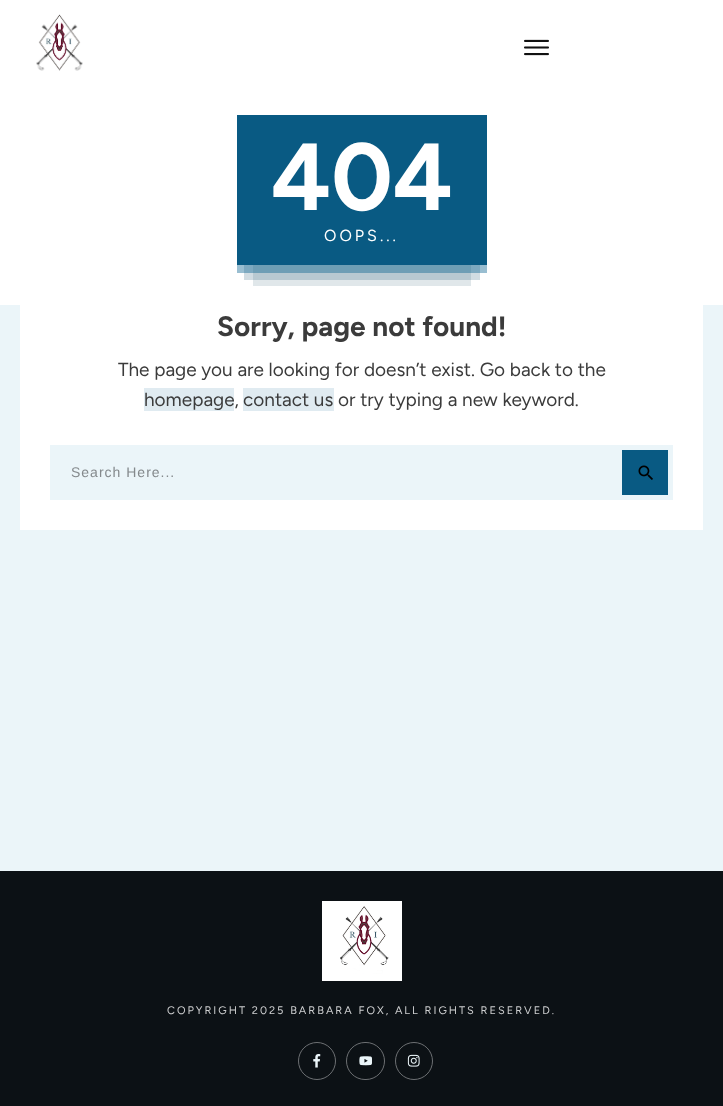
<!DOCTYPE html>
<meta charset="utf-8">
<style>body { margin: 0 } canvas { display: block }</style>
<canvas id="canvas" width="723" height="1106"></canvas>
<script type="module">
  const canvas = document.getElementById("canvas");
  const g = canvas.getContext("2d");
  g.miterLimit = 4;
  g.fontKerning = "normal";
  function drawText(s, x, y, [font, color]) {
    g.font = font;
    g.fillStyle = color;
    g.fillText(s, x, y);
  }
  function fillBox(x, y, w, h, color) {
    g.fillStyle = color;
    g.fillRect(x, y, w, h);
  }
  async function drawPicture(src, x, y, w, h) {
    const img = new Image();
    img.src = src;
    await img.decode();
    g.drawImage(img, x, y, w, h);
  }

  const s1 = ["bold 95px Figtree", "#FFFFFF"];
  const s2 = ["16px Figtree", "#FFFFFF"];
  const s3 = ["bold 28px Figtree", "#3B3B3B"];
  const s4 = ["19px Figtree", "#3B3B3B"];
  const s5 = ["14px Liberation Sans", "#84898C"];
  const s6 = ["11px Figtree", "#CECFD0"];

  fillBox(0, 0, 723, 1106, "#EBF5F9");
  fillBox(0, 0, 723, 305, "#FFFFFF");
  await drawPicture("pic1.png", 36, 14, 47, 57);
  await drawPicture("pic2.png", 524, 39, 25, 17);
  fillBox(237, 265, 250, 8, "#99BED1");
  fillBox(244, 273, 236, 7, "#D1DCE2");
  fillBox(244, 265, 236, 8, "#7DA9C0");
  fillBox(253, 280, 218, 6, "#E0E7EA");
  fillBox(253, 273, 218, 7, "#B8C9D1");
  fillBox(253, 265, 218, 8, "#6E9EB5");
  fillBox(237, 115, 250, 150, "#095A83");
  drawText("404", 271, 210, s1);
  g.letterSpacing = "3px";
  drawText("OOPS...", 324, 241, s2);
  fillBox(20, 305, 683, 225, "#FFFFFF");
  g.letterSpacing = "0px";
  drawText("Sorry, page not found!", 217, 336, s3);
  drawText("The page you are looking for doesn’t exist. Go back to the", 118, 376, s4);
  fillBox(144, 388, 90, 23, "#E0EBF1");
  drawText("homepage,", 144, 406, s4);
  fillBox(243, 388, 91, 23, "#E0EBF1");
  drawText("contact us or try typing a new keyword.", 243, 406, s4);
  fillBox(50, 445, 623, 55, "#EBF5F9");
  g.letterSpacing = "1px";
  drawText("Search Here...", 71, 477, s5);
  fillBox(622, 450, 46, 45, "#095A83");
  await drawPicture("pic3.png", 638, 465, 15, 15);
  fillBox(0, 871, 723, 235, "#0C1115");
  await drawPicture("pic4.png", 322, 901, 80, 80);
  g.letterSpacing = "2px";
  drawText("COPYRIGHT 2025 BARBARA FOX, ALL RIGHTS RESERVED.", 167, 1014, s6);
  g.beginPath();
  g.arc(317, 1061, 18.5, 0, Math.PI * 2);
  g.strokeStyle = "#6D7073";
  g.stroke();
  await drawPicture("pic5.png", 313, 1054, 8, 14);
  g.beginPath();
  g.roundRect(346.5, 1042.5, 38, 37, 18.5);
  g.stroke();
  await drawPicture("pic6.png", 359, 1056, 13, 10);
  g.beginPath();
  g.arc(414, 1061, 18.5, 0, Math.PI * 2);
  g.stroke();
  await drawPicture("pic7.png", 407, 1054, 13, 13);
</script>
